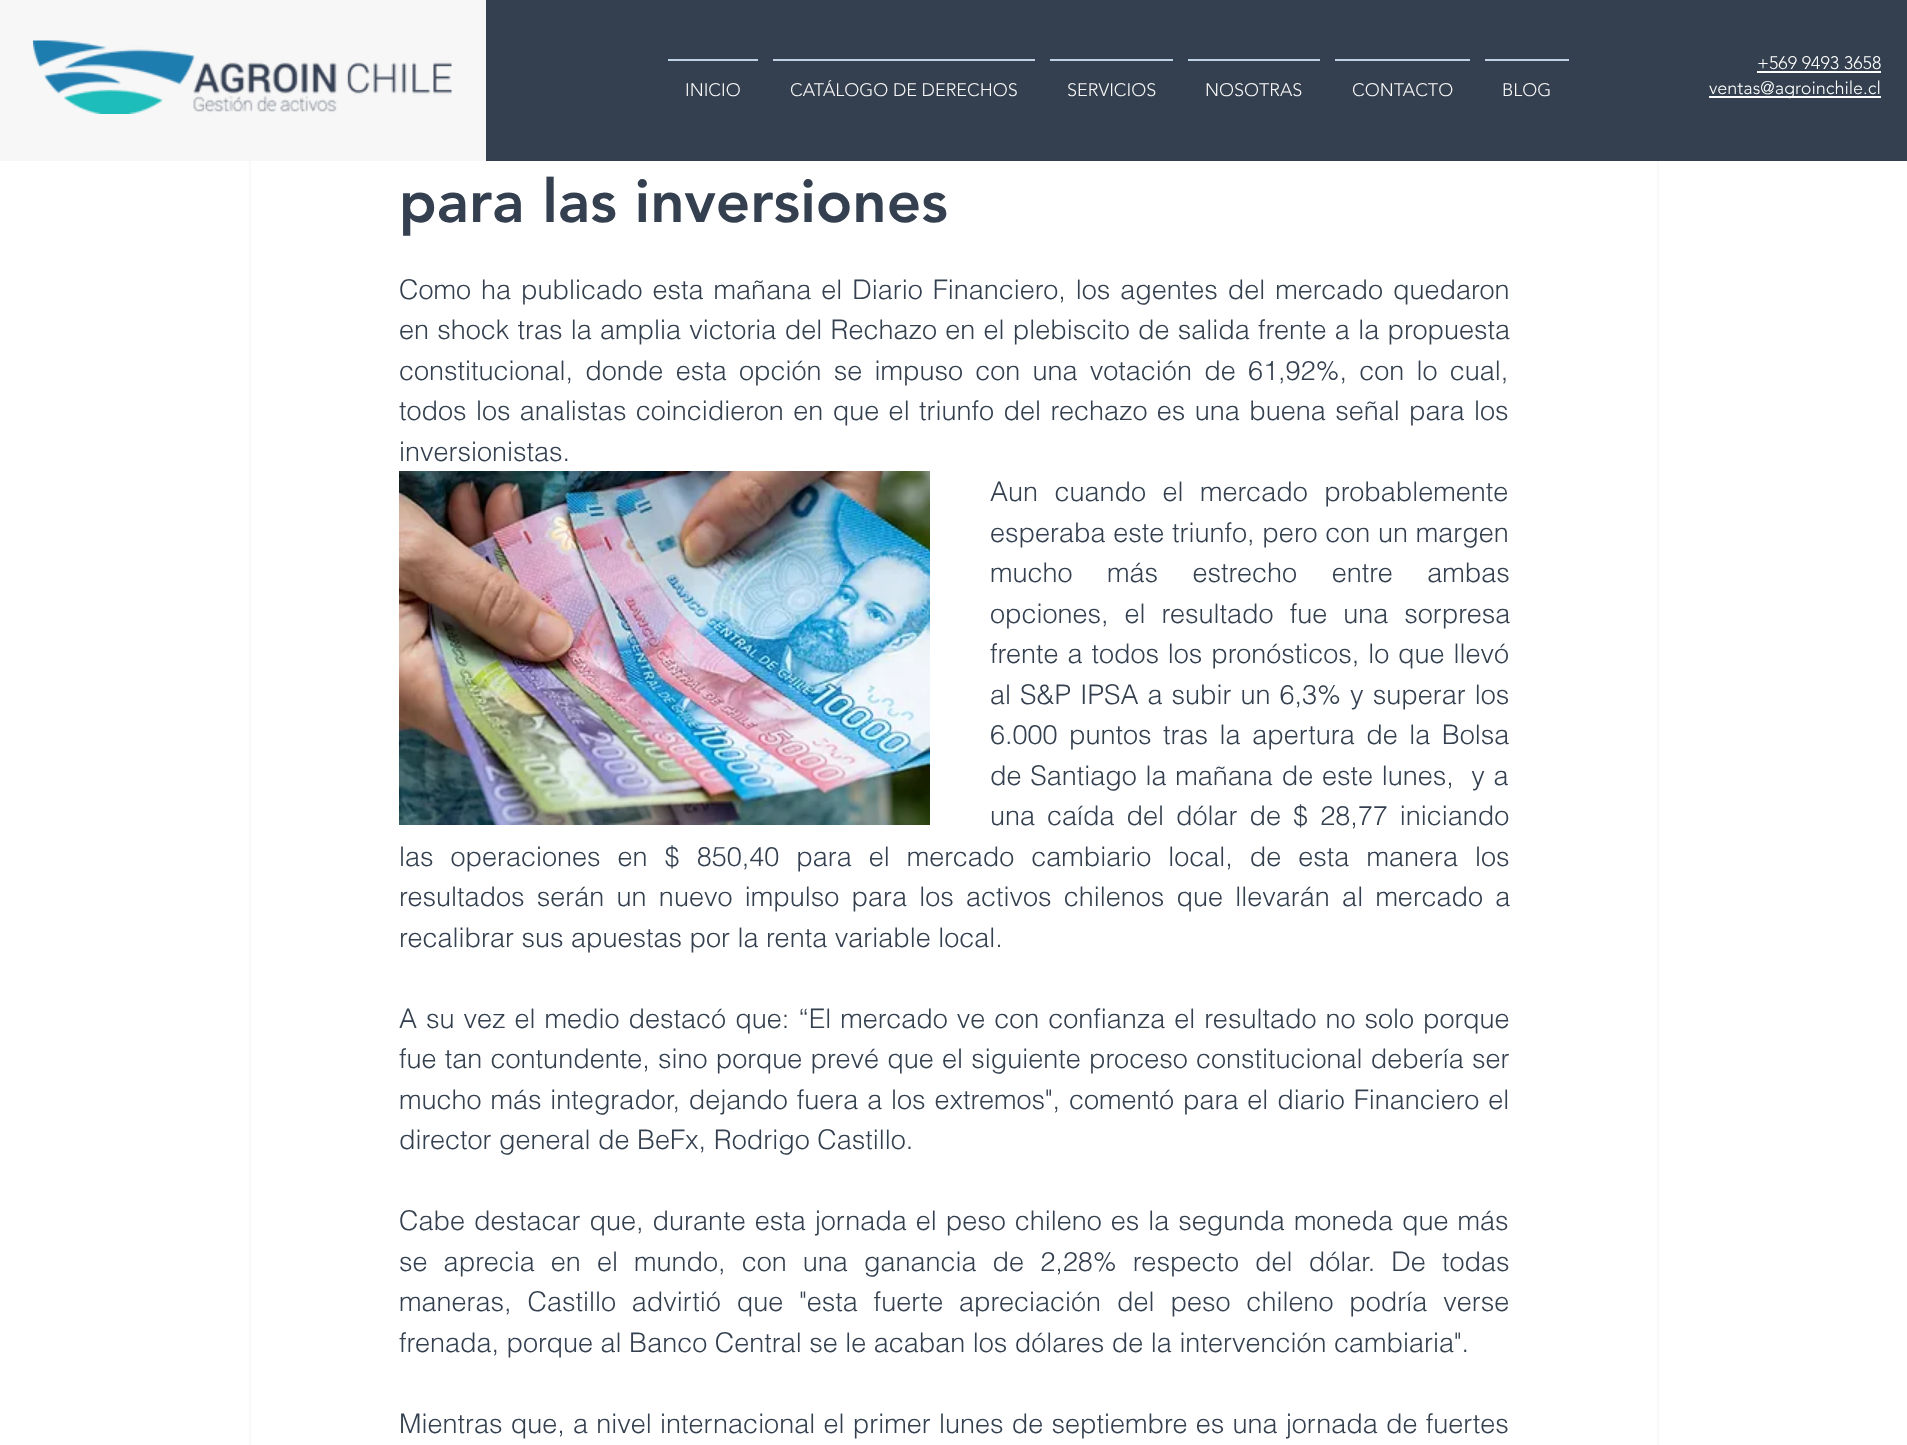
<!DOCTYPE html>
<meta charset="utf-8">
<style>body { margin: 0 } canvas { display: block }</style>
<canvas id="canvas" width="1907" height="1445"></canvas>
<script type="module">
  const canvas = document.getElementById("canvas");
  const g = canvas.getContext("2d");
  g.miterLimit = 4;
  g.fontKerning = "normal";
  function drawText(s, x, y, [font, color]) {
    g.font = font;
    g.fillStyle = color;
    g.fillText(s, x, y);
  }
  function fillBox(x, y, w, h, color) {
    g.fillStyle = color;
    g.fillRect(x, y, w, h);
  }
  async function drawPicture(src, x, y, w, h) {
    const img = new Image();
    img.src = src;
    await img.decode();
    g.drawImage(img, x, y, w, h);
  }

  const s1 = ["300 18px 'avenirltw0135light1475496'", "#F7F7F7"];
  const s2 = ["300 18px 'avenirltw0135light1475496'", "#FFFFFF"];
  const s3 = ["900 60px 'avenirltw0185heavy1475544'", "#34404F"];
  const s4 = ["300 27px helvetica", "#34404F"];

  fillBox(0, 0, 1907, 1445, "#FFFFFF");
  g.strokeStyle = "#F9F9F9";
  g.lineWidth = 2;
  g.strokeRect(250, -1, 1408, 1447);
  fillBox(0, 0, 486, 161, "#F7F7F7");
  await drawPicture("pic1.png", 33, 40, 419, 74);
  fillBox(486, 0, 1421, 161, "#34404F");
  fillBox(668, 59, 90, 2, "#C0D2E5");
  drawText("INICIO", 685, 96, s1);
  fillBox(773, 59, 262, 2, "#C0D2E5");
  drawText("CATÁLOGO DE DERECHOS", 790, 96, s1);
  fillBox(1050, 59, 123, 2, "#C0D2E5");
  drawText("SERVICIOS", 1067, 96, s1);
  fillBox(1188, 59, 132, 2, "#C0D2E5");
  drawText("NOSOTRAS", 1205, 96, s1);
  fillBox(1335, 59, 135, 2, "#C0D2E5");
  drawText("CONTACTO", 1352, 96, s1);
  fillBox(1485, 59, 84, 2, "#C0D2E5");
  drawText("BLOG", 1502, 96, s1);
  drawText("+569 9493 3658", 1757, 69, s2);
  fillBox(1757, 71, 124, 2, "#FFFFFF");
  fillBox(1709, 96, 172, 2, "#FFFFFF");
  drawText("ventas@agroinchile.cl", 1709, 94, s2);
  drawText("para las inversiones", 399, 222, s3);
  g.wordSpacing = "2.5px";
  drawText("Como ha publicado esta mañana el Diario Financiero, los agentes del mercado quedaron", 399, 299, s4);
  g.wordSpacing = "0.75px";
  drawText("en shock tras la amplia victoria del Rechazo en el plebiscito de salida frente a la propuesta", 399, 339, s4);
  g.wordSpacing = "4.75px";
  drawText("constitucional, donde esta opción se impuso con una votación de 61,92%, con lo cual,", 399, 380, s4);
  g.wordSpacing = "1.9px";
  drawText("todos los analistas coincidieron en que el triunfo del rechazo es una buena señal para los", 399, 420, s4);
  g.wordSpacing = "0px";
  drawText("inversionistas.", 399, 461, s4);
  await drawPicture("pic2.png", 399, 471, 531, 354);
  g.wordSpacing = "9px";
  drawText("Aun cuando el mercado probablemente", 990, 501, s4);
  g.wordSpacing = "0.25px";
  drawText("esperaba este triunfo, pero con un margen", 990, 542, s4);
  g.wordSpacing = "27px";
  drawText("mucho más estrecho entre ambas", 990, 582, s4);
  g.wordSpacing = "8.5px";
  drawText("opciones, el resultado fue una sorpresa", 990, 623, s4);
  g.wordSpacing = "1.4px";
  drawText("frente a todos los pronósticos, lo que llevó", 990, 663, s4);
  g.wordSpacing = "1.5px";
  drawText("al S&P IPSA a subir un 6,3% y superar los", 990, 704, s4);
  g.wordSpacing = "4px";
  drawText("6.000 puntos tras la apertura de la Bolsa", 990, 744, s4);
  g.wordSpacing = "1.25px";
  drawText("de Santiago la mañana de este lunes,  y a", 990, 785, s4);
  g.wordSpacing = "4.5px";
  drawText("una caída del dólar de $ 28,77 iniciando", 990, 825, s4);
  g.wordSpacing = "9.5px";
  drawText("las operaciones en $ 850,40 para el mercado cambiario local, de esta manera los", 399, 866, s4);
  g.wordSpacing = "4.75px";
  drawText("resultados serán un nuevo impulso para los activos chilenos que llevarán al mercado a", 399, 906, s4);
  g.wordSpacing = "0px";
  drawText("recalibrar sus apuestas por la renta variable local.", 399, 947, s4);
  g.wordSpacing = "1.5px";
  drawText("A su vez el medio destacó que: “El mercado ve con confianza el resultado no solo porque", 399, 1028, s4);
  g.wordSpacing = "0.75px";
  drawText("fue tan contundente, sino porque prevé que el siguiente proceso constitucional debería ser", 399, 1068, s4);
  g.wordSpacing = "1.4px";
  drawText("mucho más integrador, dejando fuera a los extremos\", comentó para el diario Financiero el", 399, 1109, s4);
  g.wordSpacing = "0px";
  drawText("director general de BeFx, Rodrigo Castillo.", 399, 1149, s4);
  g.wordSpacing = "1.5px";
  drawText("Cabe destacar que, durante esta jornada el peso chileno es la segunda moneda que más", 399, 1230, s4);
  g.wordSpacing = "8.6px";
  drawText("se aprecia en el mundo, con una ganancia de 2,28% respecto del dólar. De todas", 399, 1271, s4);
  g.wordSpacing = "8.4px";
  drawText("maneras, Castillo advirtió que \"esta fuerte apreciación del peso chileno podría verse", 399, 1311, s4);
  g.wordSpacing = "0px";
  drawText("frenada, porque al Banco Central se le acaban los dólares de la intervención cambiaria\".", 399, 1352, s4);
  g.wordSpacing = "0.75px";
  drawText("Mientras que, a nivel internacional el primer lunes de septiembre es una jornada de fuertes", 399, 1433, s4);
</script>
